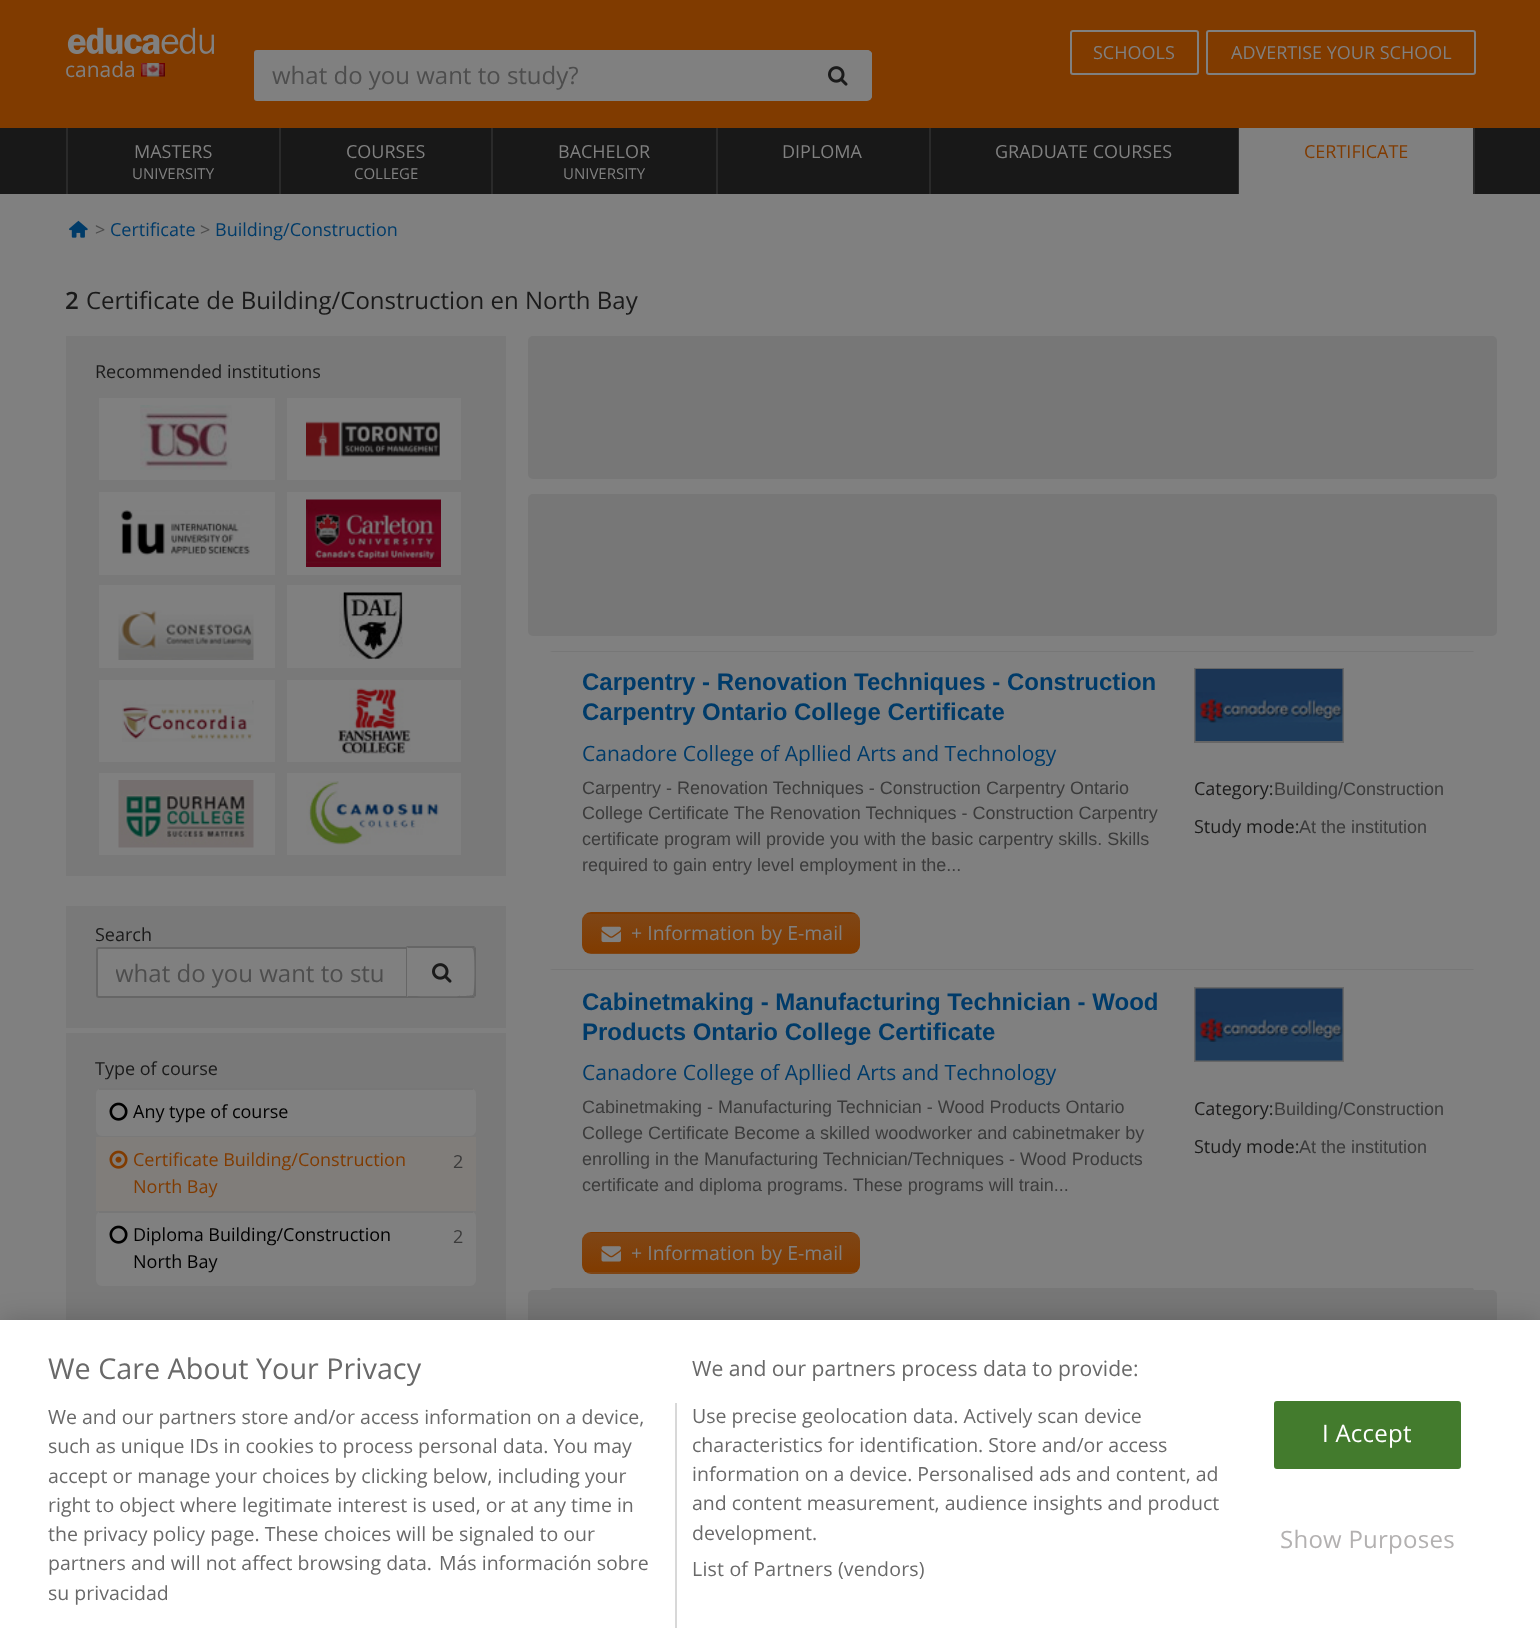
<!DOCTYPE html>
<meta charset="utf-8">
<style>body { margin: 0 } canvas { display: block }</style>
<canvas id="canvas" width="1540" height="1642"></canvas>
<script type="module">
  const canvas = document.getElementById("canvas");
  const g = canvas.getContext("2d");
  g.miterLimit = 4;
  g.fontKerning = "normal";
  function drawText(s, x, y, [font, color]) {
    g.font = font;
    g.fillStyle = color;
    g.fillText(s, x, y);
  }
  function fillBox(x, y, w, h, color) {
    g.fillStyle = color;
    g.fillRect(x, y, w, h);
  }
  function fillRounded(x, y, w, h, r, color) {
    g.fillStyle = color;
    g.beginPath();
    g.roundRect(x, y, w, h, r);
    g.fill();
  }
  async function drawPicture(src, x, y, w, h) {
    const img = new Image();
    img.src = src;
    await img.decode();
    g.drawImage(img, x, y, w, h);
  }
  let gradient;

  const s1 = ["18px Open Sans", "#808080"];
  const s2 = ["21px Open Sans", "#808080"];
  const s3 = ["24px Open Sans", "#4D4D4D"];
  const s4 = ["15px Open Sans", "#808080"];
  const s5 = ["18px Open Sans", "#803B00"];
  const s6 = ["18px Open Sans", "#4D4D4D"];
  const s7 = ["18px Open Sans", "#003B69"];
  const s8 = ["600 24px Open Sans", "#1A1A1A"];
  const s9 = ["24px Open Sans", "#1A1A1A"];
  const s10 = ["18px Open Sans", "#1A1A1A"];
  const s11 = ["18px Open Sans", "#000000"];
  const s12 = ["18px Open Sans", "#3B3B3B"];
  const s13 = ["bold 24px Liberation Sans", "#003B69"];
  const s14 = ["21px Open Sans", "#003B69"];
  const s15 = ["18px Liberation Sans", "#3B3B3B"];
  const s16 = ["19.5px Open Sans", "#808080"];
  const s17 = ["28.75px Open Sans", "#696969"];
  const s18 = ["21.1px Open Sans", "#696969"];
  const s19 = ["19.5px Open Sans", "#696969"];
  const s20 = ["24px Open Sans", "#FFFFFF"];
  const s21 = ["24px Open Sans", "#B3B1B1"];

  fillBox(0, 0, 1540, 1642, "#808080");
  fillBox(0, 0, 1540, 128, "#803B00");
  g.beginPath();
  g.roundRect(1071, 31, 127, 43, 2);
  g.strokeStyle = "#808080";
  g.lineWidth = 2;
  g.stroke();
  drawText("SCHOOLS", 1093, 59, s1);
  g.beginPath();
  g.roundRect(1207, 31, 268, 43, 2);
  g.stroke();
  drawText("ADVERTISE YOUR SCHOOL", 1231, 59, s1);
  await drawPicture("pic1.png", 67, 27, 147, 27);
  drawText("canada", 65, 77, s2);
  await drawPicture("pic2.png", 141, 63, 24, 14);
  g.beginPath();
  g.roundRect(255, 51, 550, 49, [2, 0, 0, 2]);
  g.fill();
  g.stroke();
  drawText("what do you want to study?", 272, 84, s3);
  g.fillStyle = "#808080";
  g.beginPath();
  g.roundRect(804, 50, 68, 51, [0, 5, 5, 0]);
  g.fill();
  g.beginPath();
  g.moveTo(806, 51);
  g.bezierCurveTo(813, 51, 868, 50, 869, 52);
  g.lineTo(870, 51);
  g.lineTo(867, 50);
  g.lineTo(804, 50);
  g.lineTo(806, 52);
  g.closePath();
  g.fill();
  g.beginPath();
  g.moveTo(872, 97);
  g.lineTo(870, 99);
  g.lineTo(869, 98);
  g.bezierCurveTo(871, 97, 871, 53, 869, 52);
  g.lineTo(870, 51);
  g.lineTo(872, 53);
  g.closePath();
  g.fill();
  await drawPicture("pic3.png", 828, 66, 20, 20);
  fillBox(0, 128, 1540, 66, "#181818");
  fillBox(279, 128, 2, 66, "#2A2A2A");
  fillBox(66, 128, 2, 66, "#2A2A2A");
  drawText("MASTERS", 134, 158, s1);
  drawText("UNIVERSITY", 132, 179, s4);
  fillBox(491, 128, 2, 66, "#2A2A2A");
  drawText("COURSES", 346, 158, s1);
  drawText("COLLEGE", 354, 179, s4);
  fillBox(716, 128, 2, 66, "#2A2A2A");
  drawText("BACHELOR", 558, 158, s1);
  drawText("UNIVERSITY", 563, 179, s4);
  fillBox(929, 128, 2, 66, "#2A2A2A");
  drawText("DIPLOMA", 782, 158, s1);
  fillBox(1238, 128, 1, 66, "#2A2A2A");
  drawText("GRADUATE COURSES", 995, 158, s1);
  fillBox(1473, 128, 2, 66, "#2A2A2A");
  fillBox(1239, 128, 234, 66, "#808080");
  drawText("CERTIFICATE", 1304, 158, s5);
  await drawPicture("pic4.png", 69, 220, 19, 18);
  drawText(">", 95, 236, s6);
  drawText("Certificate", 110, 236, s7);
  drawText(">", 200, 236, s6);
  drawText("Building/Construction", 215, 236, s7);
  drawText("2", 65, 309, s8);
  drawText("Certificate de Building/Construction en North Bay", 86, 309, s9);
  fillBox(66, 336, 440, 540, "#797979");
  drawText("Recommended institutions", 95, 378, s10);
  fillBox(99, 398, 176, 82, "#808080");
  await drawPicture("pic5.png", 140, 405, 92, 65);
  fillBox(287, 398, 174, 82, "#808080");
  await drawPicture("pic6.png", 306, 421, 134, 36);
  fillBox(99, 492, 176, 83, "#808080");
  await drawPicture("pic7.png", 121, 510, 129, 46);
  fillBox(287, 492, 174, 83, "#808080");
  await drawPicture("pic8.png", 306, 499, 135, 68);
  fillBox(99, 585, 176, 83, "#808080");
  await drawPicture("pic9.png", 118, 610, 136, 50);
  fillBox(287, 585, 174, 83, "#808080");
  await drawPicture("pic10.png", 339, 592, 64, 68);
  fillBox(99, 680, 176, 82, "#808080");
  await drawPicture("pic11.png", 122, 700, 132, 42);
  fillBox(287, 680, 174, 82, "#808080");
  await drawPicture("pic12.png", 338, 688, 73, 66);
  fillBox(99, 773, 176, 82, "#808080");
  await drawPicture("pic13.png", 118, 780, 136, 68);
  fillBox(287, 773, 174, 82, "#808080");
  await drawPicture("pic14.png", 306, 781, 133, 64);
  fillBox(66, 906, 440, 414, "#797979");
  fillBox(66, 1028, 440, 5, "#808080");
  drawText("Search", 95, 941, s10);
  g.fillStyle = "#808080";
  g.beginPath();
  g.roundRect(97, 948, 310, 49, [2, 0, 0, 2]);
  g.fill();
  g.strokeStyle = "#666666";
  g.stroke();
  g.save();
  g.beginPath();
  g.rect(116, 956, 273, 33);
  g.clip();
  drawText("what do you want to stu", 115, 982, s3);
  g.restore();
  g.beginPath();
  g.roundRect(407, 947, 69, 51, [0, 3, 3, 0]);
  g.fill();
  g.fillStyle = "#666666";
  g.beginPath();
  g.moveTo(408, 948);
  g.lineTo(406, 946);
  g.lineTo(474, 946);
  g.lineTo(475, 947);
  g.lineTo(473, 949);
  g.lineTo(472, 948);
  g.closePath();
  g.fill();
  g.beginPath();
  g.moveTo(476, 996);
  g.lineTo(475, 997);
  g.lineTo(473, 995);
  g.bezierCurveTo(475, 994, 475, 950, 473, 949);
  g.lineTo(475, 947);
  g.lineTo(476, 948);
  g.closePath();
  g.fill();
  g.beginPath();
  g.moveTo(475, 997);
  g.lineTo(474, 998);
  g.lineTo(406, 998);
  g.lineTo(408, 996);
  g.bezierCurveTo(415, 996, 472, 997, 473, 995);
  g.closePath();
  g.fill();
  await drawPicture("pic3.png", 432, 963, 20, 20);
  drawText("Type of course", 95, 1075, s10);
  fillRounded(96, 1088, 380, 48, 6, "#808080");
  fillBox(99, 1088, 374, 2, "#777777");
  await drawPicture("pic15.png", 109, 1102, 19, 19);
  drawText("Any type of course", 133, 1118, s11);
  fillBox(96, 1137, 380, 74, "#807D7A");
  await drawPicture("pic16.png", 109, 1150, 19, 19);
  drawText("Certificate Building/Construction", 133, 1166, s5);
  drawText("North Bay", 133, 1193, s5);
  drawText("2", 453, 1168, s12);
  fillRounded(96, 1211, 380, 75, 6, "#808080");
  fillBox(99, 1211, 374, 2, "#777777");
  await drawPicture("pic15.png", 109, 1225, 19, 19);
  drawText("Diploma Building/Construction", 133, 1241, s11);
  drawText("North Bay", 133, 1268, s11);
  drawText("2", 453, 1243, s12);
  fillRounded(528, 336, 969, 143, 5, "#777777");
  fillRounded(528, 494, 969, 142, 5, "#777777");
  g.beginPath();
  g.moveTo(550, 651);
  g.lineTo(1474, 651);
  g.lineTo(1473, 652);
  g.lineTo(552, 652);
  g.closePath();
  g.fill();
  g.beginPath();
  g.moveTo(1474, 970);
  g.lineTo(550, 970);
  g.lineTo(552, 969);
  g.lineTo(1473, 969);
  g.closePath();
  g.fill();
  drawText("Carpentry - Renovation Techniques - Construction", 582, 690, s13);
  drawText("Carpentry Ontario College Certificate", 582, 720, s13);
  drawText("Canadore College of Apllied Arts and Technology", 582, 761, s14);
  g.strokeRect(1195, 669, 148, 73);
  await drawPicture("pic17.png", 1195, 669, 148, 72);
  drawText("Carpentry - Renovation Techniques - Construction Carpentry Ontario", 582, 794, s15);
  drawText("College Certificate The Renovation Techniques - Construction Carpentry", 582, 819, s15);
  drawText("certificate program will provide you with the basic carpentry skills. Skills", 582, 845, s15);
  drawText("required to gain entry level employment in the...", 582, 871, s15);
  drawText("Category:", 1194, 795, s10);
  drawText("Building/Construction", 1274, 795, s15);
  drawText("Study mode:", 1194, 833, s10);
  drawText("At the institution", 1299, 833, s15);
  g.save();
  g.beginPath();
  g.roundRect(582, 912, 278, 42, 9);
  g.clip();
  gradient = g.createLinearGradient(721, 875, 721, 914);
  gradient.addColorStop(0, "#7F4616");
  gradient.addColorStop(1, "#803B00");
  g.fillStyle = gradient;
  g.fillRect(582, 912, 278, 2);
  gradient = g.createLinearGradient(721, 914, 721, 953);
  gradient.addColorStop(0, "#7F4616");
  gradient.addColorStop(1, "#803B00");
  g.fillStyle = gradient;
  g.fillRect(582, 914, 278, 39);
  gradient = g.createLinearGradient(721, 953, 721, 992);
  gradient.addColorStop(0, "#7F4616");
  gradient.addColorStop(1, "#803B00");
  g.fillStyle = gradient;
  g.fillRect(582, 953, 278, 1);
  g.restore();
  await drawPicture("pic18.png", 601, 926, 20, 17);
  drawText("+ Information by E-mail", 631, 940, s16);
  g.fillStyle = "#777777";
  g.beginPath();
  g.moveTo(1474, 1290);
  g.lineTo(550, 1290);
  g.lineTo(552, 1288);
  g.lineTo(1473, 1288);
  g.closePath();
  g.fill();
  drawText("Cabinetmaking - Manufacturing Technician - Wood", 582, 1010, s13);
  drawText("Products Ontario College Certificate", 582, 1040, s13);
  drawText("Canadore College of Apllied Arts and Technology", 582, 1080, s14);
  g.strokeRect(1195, 988, 148, 73);
  await drawPicture("pic19.png", 1195, 988, 148, 73);
  drawText("Cabinetmaking - Manufacturing Technician - Wood Products Ontario", 582, 1113, s15);
  drawText("College Certificate Become a skilled woodworker and cabinetmaker by", 582, 1139, s15);
  drawText("enrolling in the Manufacturing Technician/Techniques - Wood Products", 582, 1165, s15);
  drawText("certificate and diploma programs. These programs will train...", 582, 1191, s15);
  drawText("Category:", 1194, 1115, s10);
  drawText("Building/Construction", 1274, 1115, s15);
  drawText("Study mode:", 1194, 1153, s10);
  drawText("At the institution", 1299, 1153, s15);
  g.save();
  g.beginPath();
  g.roundRect(582, 1232, 278, 42, 9);
  g.clip();
  gradient = g.createLinearGradient(721, 1194, 721, 1233);
  gradient.addColorStop(0, "#7F4616");
  gradient.addColorStop(1, "#803B00");
  g.fillStyle = gradient;
  g.fillRect(582, 1232, 278, 1);
  gradient = g.createLinearGradient(721, 1233, 721, 1272);
  gradient.addColorStop(0, "#7F4616");
  gradient.addColorStop(1, "#803B00");
  g.fillStyle = gradient;
  g.fillRect(582, 1233, 278, 39);
  gradient = g.createLinearGradient(721, 1272, 721, 1311);
  gradient.addColorStop(0, "#7F4616");
  gradient.addColorStop(1, "#803B00");
  g.fillStyle = gradient;
  g.fillRect(582, 1272, 278, 2);
  g.restore();
  await drawPicture("pic20.png", 601, 1246, 20, 16);
  drawText("+ Information by E-mail", 631, 1260, s16);
  fillRounded(528, 1290, 969, 143, 5, "#777777");
  g.fillStyle = "rgba(0, 0, 0, 0.2)";
  g.filter = "blur(13.5px)";
  g.beginPath();
  g.rect(0, 1320, 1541, 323);
  g.fill();
  g.filter = "none";
  fillBox(0, 1320, 1540, 322, "#FFFFFF");
  drawText("We Care About Your Privacy", 48, 1379, s17);
  drawText("We and our partners process data to provide:", 692, 1376, s18);
  drawText("Use precise geolocation data. Actively scan device", 692, 1423, s19);
  drawText("characteristics for identification. Store and/or access", 692, 1452, s19);
  drawText("information on a device. Personalised ads and content, ad", 692, 1481, s19);
  drawText("and content measurement, audience insights and product", 692, 1510, s19);
  drawText("development.", 692, 1540, s19);
  g.letterSpacing = "0.2px";
  drawText("List of Partners (vendors)", 692, 1576, s19);
  fillBox(675, 1403, 2, 225, "#D8D8D8");
  g.letterSpacing = "0px";
  drawText("We and our partners store and/or access information on a device,", 48, 1424, s19);
  drawText("such as unique IDs in cookies to process personal data. You may", 48, 1453, s19);
  drawText("accept or manage your choices by clicking below, including your", 48, 1483, s19);
  drawText("right to object where legitimate interest is used, or at any time in", 48, 1512, s19);
  drawText("the privacy policy page. These choices will be signaled to our", 48, 1541, s19);
  drawText("partners and will not affect browsing data.", 48, 1570, s19);
  drawText("Más información sobre", 439, 1570, s19);
  drawText("su privacidad", 48, 1600, s19);
  g.fillStyle = "#437B2D";
  g.beginPath();
  g.roundRect(1275, 1402, 185, 66, 2);
  g.fill();
  g.strokeStyle = "#437B2D";
  g.stroke();
  g.letterSpacing = "0.25px";
  drawText("I Accept", 1322, 1442, s20);
  drawText("Show Purposes", 1280, 1548, s21);
</script>
